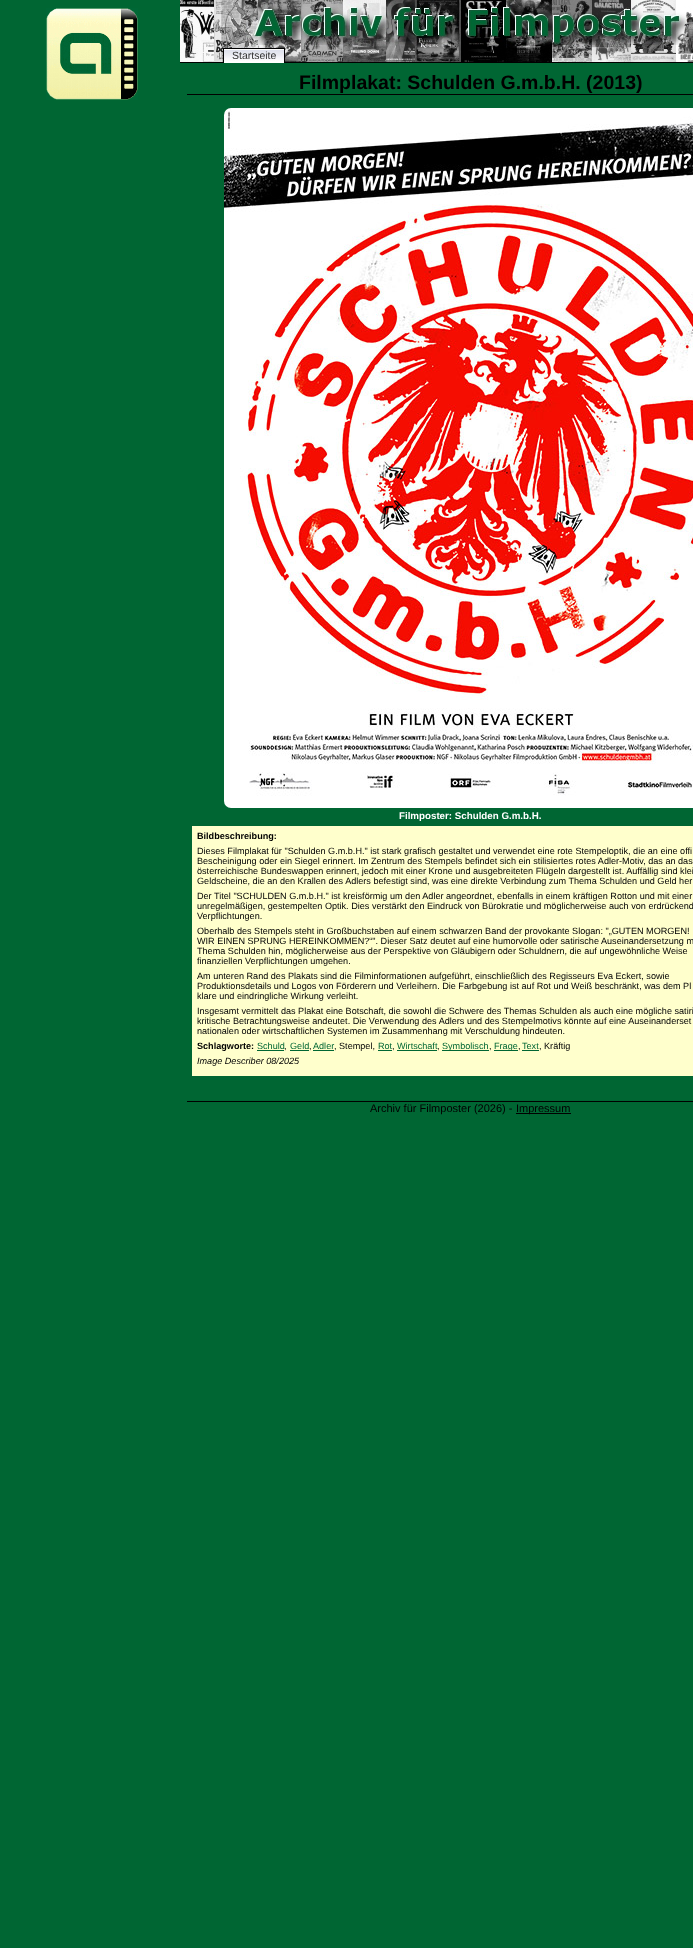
<!DOCTYPE html>
<meta charset="utf-8">
<style>body { margin: 0 } canvas { display: block }</style>
<canvas id="canvas" width="693" height="1948"></canvas>
<script type="module">
  const canvas = document.getElementById("canvas");
  const g = canvas.getContext("2d");
  g.miterLimit = 4;
  g.fontKerning = "normal";
  function drawText(s, x, y, [font, color]) {
    g.font = font;
    g.fillStyle = color;
    g.fillText(s, x, y);
  }
  function fillBox(x, y, w, h, color) {
    g.fillStyle = color;
    g.fillRect(x, y, w, h);
  }
  async function drawPicture(src, x, y, w, h) {
    const img = new Image();
    img.src = src;
    await img.decode();
    g.drawImage(img, x, y, w, h);
  }

  const s1 = ["10.5px Liberation Sans", "#333333"];
  const s2 = ["bold 19.5px Liberation Sans", "#000000"];
  const s3 = ["bold 9.75px Liberation Sans", "#FFFFFF"];
  const s4 = ["bold 9.1px Liberation Sans", "#000000"];
  const s5 = ["9.1px Liberation Sans", "#000000"];
  const s6 = ["9.1px Liberation Sans", "#006633"];
  const s7 = ["italic 9.1px Liberation Sans", "#000000"];
  const s8 = ["11px Liberation Sans", "#000000"];

  fillBox(0, 0, 693, 1948, "#006633");
  await drawPicture("pic1.png", 46, 8, 92, 92);
  fillBox(180, 62, 513, 1, "#000000");
  await drawPicture("pic2.png", 180, 0, 513, 62);
  fillBox(224, 49, 60, 14, "#FFFFFF");
  await drawPicture("pic3.png", 224, 50, 60, 11);
  fillBox(223, 48, 62, 1, "#000000");
  fillBox(284, 48, 1, 15, "#000000");
  fillBox(223, 48, 1, 15, "#000000");
  drawText("Startseite", 232, 59, s1);
  fillBox(187, 94, 506, 1, "#000000");
  drawText("Filmplakat: Schulden G.m.b.H. (2013)", 299, 89, s2);
  await drawPicture("pic4.png", 224, 108, 469, 700);
  drawText("Filmposter: Schulden G.m.b.H.", 399, 819, s3);
  fillBox(192, 826, 501, 250, "#FFFFCC");
  drawText("Bildbeschreibung:", 197, 839, s4);
  drawText("Dieses Filmplakat für \"Schulden G.m.b.H.\" ist stark grafisch gestaltet und verwendet eine rote Stempeloptik, die an eine offi", 197, 854, s5);
  drawText("Bescheinigung oder ein Siegel erinnert. Im Zentrum des Stempels befindet sich ein stilisiertes rotes Adler-Motiv, das an das", 197, 864, s5);
  drawText("österreichische Bundeswappen erinnert, jedoch mit einer Krone und ausgebreiteten Flügeln dargestellt ist. Auffällig sind klei", 197, 874, s5);
  drawText("Geldscheine, die an den Krallen des Adlers befestigt sind, was eine direkte Verbindung zum Thema Schulden und Geld her", 197, 884, s5);
  drawText("Der Titel \"SCHULDEN G.m.b.H.\" ist kreisförmig um den Adler angeordnet, ebenfalls in einem kräftigen Rotton und mit einer", 197, 899, s5);
  drawText("unregelmäßigen, gestempelten Optik. Dies verstärkt den Eindruck von Bürokratie und möglicherweise auch von erdrückend", 197, 909, s5);
  drawText("Verpflichtungen.", 197, 919, s5);
  drawText("Oberhalb des Stempels steht in Großbuchstaben auf einem schwarzen Band der provokante Slogan: \"„GUTEN MORGEN!", 197, 934, s5);
  drawText("WIR EINEN SPRUNG HEREINKOMMEN?“\". Dieser Satz deutet auf eine humorvolle oder satirische Auseinandersetzung m", 197, 944, s5);
  drawText("Thema Schulden hin, möglicherweise aus der Perspektive von Gläubigern oder Schuldnern, die auf ungewöhnliche Weise", 197, 954, s5);
  drawText("finanziellen Verpflichtungen umgehen.", 197, 964, s5);
  drawText("Am unteren Rand des Plakats sind die Filminformationen aufgeführt, einschließlich des Regisseurs Eva Eckert, sowie", 197, 979, s5);
  drawText("Produktionsdetails und Logos von Förderern und Verleihern. Die Farbgebung ist auf Rot und Weiß beschränkt, was dem Pl", 197, 989, s5);
  drawText("klare und eindringliche Wirkung verleiht.", 197, 999, s5);
  drawText("Insgesamt vermittelt das Plakat eine Botschaft, die sowohl die Schwere des Themas Schulden als auch eine mögliche satiri", 197, 1014, s5);
  drawText("kritische Betrachtungsweise andeutet. Die Verwendung des Adlers und des Stempelmotivs könnte auf eine Auseinanderset", 197, 1024, s5);
  drawText("nationalen oder wirtschaftlichen Systemen im Zusammenhang mit Verschuldung hindeuten.", 197, 1034, s5);
  drawText("Schlagworte:", 197, 1049, s4);
  drawText("Schuld", 257, 1049, s6);
  fillBox(257, 1050, 27, 1, "#006633");
  drawText(",", 284, 1049, s5);
  drawText("Geld", 290, 1049, s6);
  fillBox(290, 1050, 19, 1, "#006633");
  drawText(",", 309, 1049, s5);
  drawText("Adler", 313, 1049, s6);
  fillBox(313, 1050, 21, 1, "#006633");
  drawText(", Stempel,", 334, 1049, s5);
  drawText("Rot", 378, 1049, s6);
  fillBox(378, 1050, 14, 1, "#006633");
  drawText(",", 392, 1049, s5);
  drawText("Wirtschaft", 397, 1049, s6);
  fillBox(397, 1050, 40, 1, "#006633");
  fillBox(442, 1050, 47, 1, "#006633");
  drawText("Symbolisch", 442, 1049, s6);
  fillBox(494, 1050, 24, 1, "#006633");
  drawText("Frage", 494, 1049, s6);
  drawText("Text", 522, 1049, s6);
  fillBox(522, 1050, 17, 1, "#006633");
  drawText(", Kräftig", 539, 1049, s5);
  drawText(",", 437, 1049, s5);
  drawText(",", 489, 1049, s5);
  drawText(",", 518, 1049, s5);
  drawText("Image Describer 08/2025", 197, 1064, s7);
  fillBox(187, 1101, 506, 1, "#000000");
  drawText("Archiv für Filmposter (2026) -", 370, 1112, s8);
  fillBox(516, 1113, 55, 1, "#000000");
  drawText("Impressum", 516, 1112, s8);
</script>
